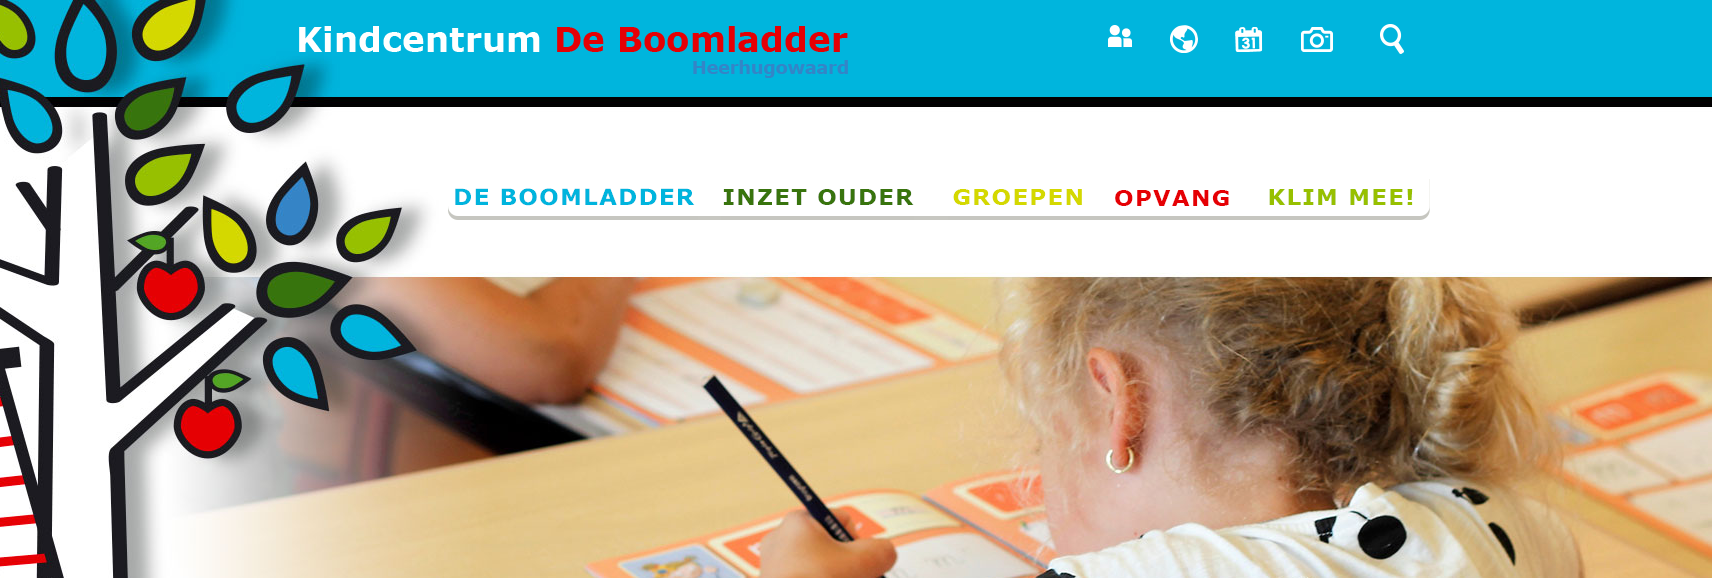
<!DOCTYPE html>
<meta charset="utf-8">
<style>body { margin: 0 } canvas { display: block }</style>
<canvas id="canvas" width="1712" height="578"></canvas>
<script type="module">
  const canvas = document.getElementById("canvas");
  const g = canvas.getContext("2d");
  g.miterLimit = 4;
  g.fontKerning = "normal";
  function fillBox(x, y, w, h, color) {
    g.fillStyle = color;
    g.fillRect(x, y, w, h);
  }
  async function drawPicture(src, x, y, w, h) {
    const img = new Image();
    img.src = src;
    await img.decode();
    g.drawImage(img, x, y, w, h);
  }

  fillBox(0, 0, 1712, 578, "#FFFFFF");
  await drawPicture("pic1.png", 0, 0, 1712, 578);
  await drawPicture("pic2.png", 299, 26, 549, 52);
  await drawPicture("pic3.png", 1108, 25, 24, 22);
  await drawPicture("pic4.png", 1170, 25, 28, 28);
  await drawPicture("pic5.png", 1235, 27, 28, 25);
  await drawPicture("pic6.png", 1301, 27, 32, 25);
  await drawPicture("pic7.png", 1380, 24, 24, 30);
  await drawPicture("pic8.png", 448, 188, 250, 32);
  fillBox(698, 216, 23, 4, "#C7C7C1");
  await drawPicture("pic9.png", 721, 189, 193, 31);
  fillBox(914, 216, 34, 4, "#C7C7C1");
  await drawPicture("pic10.png", 948, 189, 165, 31);
  await drawPicture("pic11.png", 1113, 190, 152, 30);
  await drawPicture("pic12.png", 1265, 179, 165, 41);
</script>
